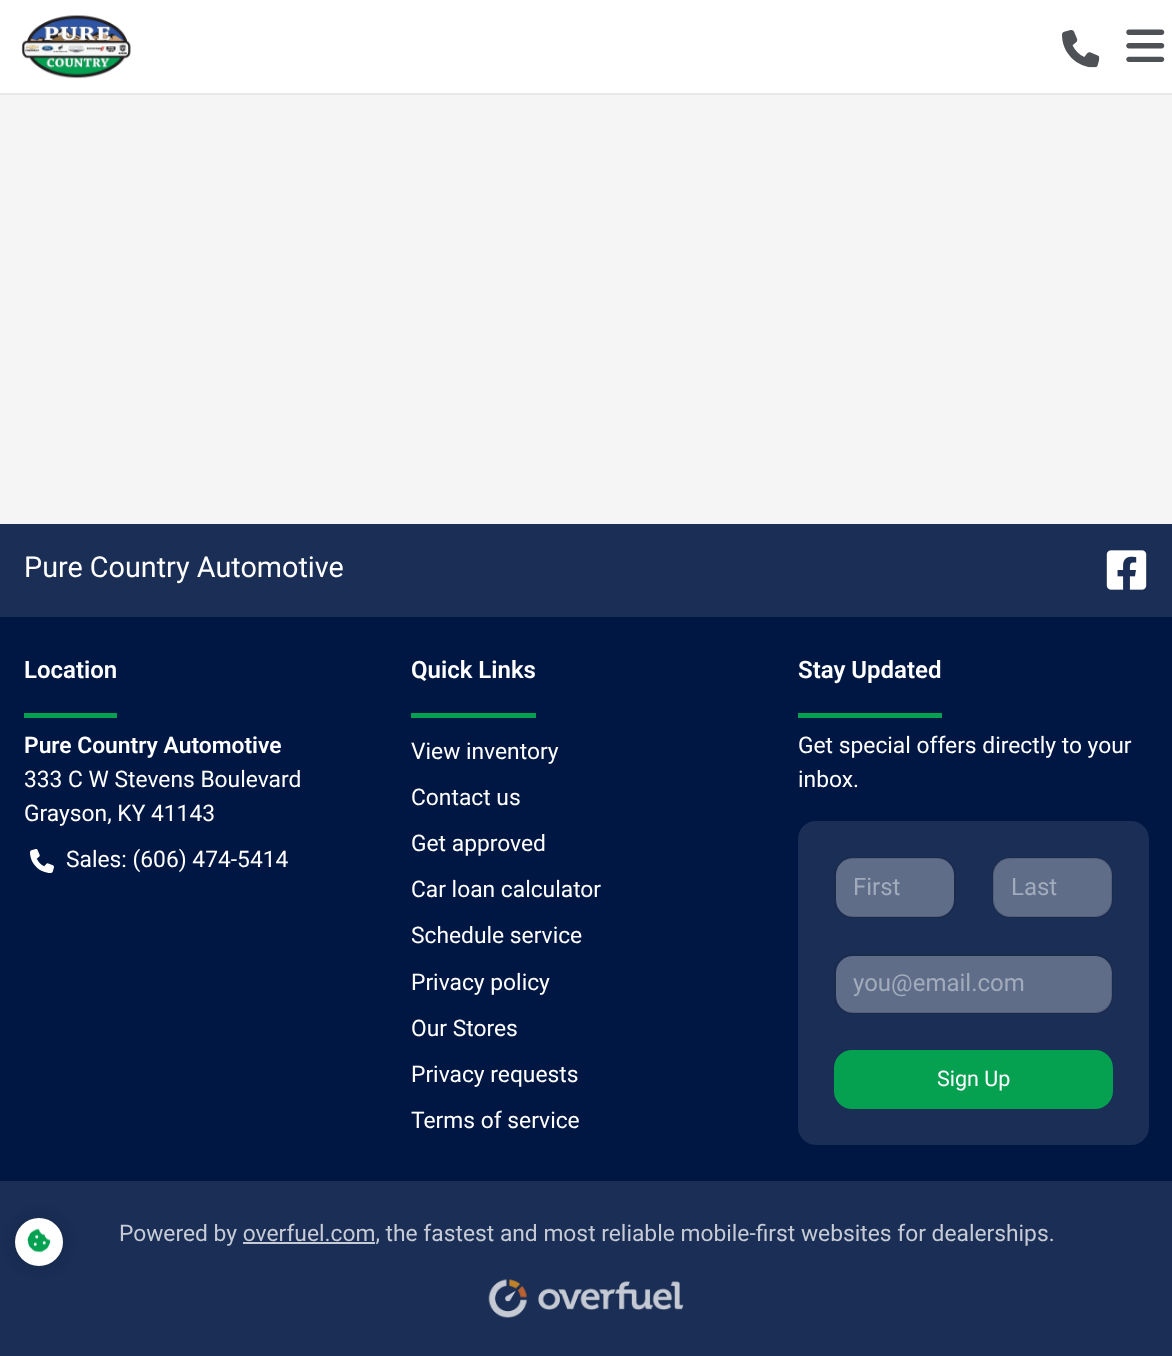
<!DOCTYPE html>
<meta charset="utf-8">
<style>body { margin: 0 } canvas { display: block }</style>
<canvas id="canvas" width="1172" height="1356"></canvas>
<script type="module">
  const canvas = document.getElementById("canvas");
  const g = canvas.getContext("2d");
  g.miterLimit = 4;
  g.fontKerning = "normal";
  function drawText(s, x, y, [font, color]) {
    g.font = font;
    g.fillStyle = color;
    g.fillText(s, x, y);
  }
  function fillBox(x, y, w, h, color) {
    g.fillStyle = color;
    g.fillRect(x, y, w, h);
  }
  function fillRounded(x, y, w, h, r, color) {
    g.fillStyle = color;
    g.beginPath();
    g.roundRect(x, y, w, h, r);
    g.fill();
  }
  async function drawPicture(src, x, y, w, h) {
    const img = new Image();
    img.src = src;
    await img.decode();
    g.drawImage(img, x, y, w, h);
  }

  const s1 = ["28.75px Roboto", "#FFFFFF"];
  const s2 = ["600 24px Roboto", "#FFFFFF"];
  const s3 = ["600 22.8px Roboto", "#FFFFFF"];
  const s4 = ["22.8px Roboto", "#FFFFFF"];
  const s5 = ["24px Roboto", "#A2ABBB"];
  const s6 = ["21.5px Roboto", "#FFFFFF"];
  const s7 = ["22.8px Roboto", "#C6CBD5"];

  fillBox(0, 0, 1172, 1356, "#F5F5F5");
  fillBox(0, 0, 1172, 93, "#FFFFFF");
  fillBox(0, 93, 1172, 2, "#E8E8E9");
  await drawPicture("pic1.png", 21, 15, 110, 64);
  await drawPicture("pic2.png", 1062, 30, 38, 38);
  await drawPicture("pic3.png", 1126, 29, 39, 33);
  fillBox(0, 617, 1172, 564, "#001743");
  fillBox(0, 524, 1172, 93, "#1A2E56");
  drawText("Pure Country Automotive", 24, 577, s1);
  await drawPicture("pic4.png", 1106, 550, 41, 40);
  fillBox(24, 713, 93, 5, "#05A151");
  drawText("Location", 24, 678, s2);
  drawText("Pure Country Automotive", 24, 753, s3);
  drawText("333 C W Stevens Boulevard", 24, 787, s4);
  drawText("Grayson, KY 41143", 24, 821, s4);
  await drawPicture("pic5.png", 30, 849, 24, 24);
  drawText("Sales: (606) 474-5414", 66, 867, s4);
  fillBox(411, 713, 125, 5, "#05A151");
  drawText("Quick Links", 411, 678, s2);
  drawText("View inventory", 411, 759, s4);
  drawText("Contact us", 411, 805, s4);
  drawText("Get approved", 411, 851, s4);
  drawText("Car loan calculator", 411, 897, s4);
  drawText("Schedule service", 411, 943, s4);
  drawText("Privacy policy", 411, 990, s4);
  drawText("Our Stores", 411, 1036, s4);
  drawText("Privacy requests", 411, 1082, s4);
  drawText("Terms of service", 411, 1128, s4);
  fillBox(798, 713, 144, 5, "#05A151");
  drawText("Stay Updated", 798, 678, s2);
  drawText("Get special offers directly to your", 798, 753, s4);
  drawText("inbox.", 798, 787, s4);
  fillRounded(798, 821, 351, 324, 18, "#1A2E56");
  fillRounded(836, 858, 118, 59, 17, "#5F6D89");
  g.beginPath();
  g.roundRect(835, 858, 120, 59, 17);
  g.strokeStyle = "rgba(24, 28, 33, 0.15)";
  g.lineWidth = 2;
  g.stroke();
  drawText("First", 853, 895, s5);
  fillRounded(993, 858, 119, 59, 17, "#5F6D89");
  g.beginPath();
  g.roundRect(993, 858, 119, 59, 17);
  g.stroke();
  drawText("Last", 1011, 895, s5);
  fillRounded(836, 956, 276, 57, 17, "#5F6D89");
  g.beginPath();
  g.roundRect(835, 955, 277, 58, 17);
  g.stroke();
  drawText("you@email.com", 853, 991, s5);
  g.fillStyle = "#05A151";
  g.beginPath();
  g.roundRect(835, 1051, 277, 57, 17);
  g.fill();
  g.strokeStyle = "#05A151";
  g.stroke();
  drawText("Sign Up", 937, 1086, s6);
  fillBox(0, 1181, 1172, 175, "#1A2E56");
  drawText("Powered by overfuel.com, the fastest and most reliable mobile-first websites for dealerships.", 119, 1241, s7);
  fillBox(243, 1242, 132, 2, "#C6CBD5");
  await drawPicture("pic6.png", 488, 1279, 196, 39);
  g.fillStyle = "rgba(0, 0, 0, 0.15)";
  g.filter = "blur(7.5px)";
  g.beginPath();
  g.roundRect(15, 1218, 48, 48, 24);
  g.fill();
  g.filter = "none";
  g.fillStyle = "#FFFFFF";
  g.beginPath();
  g.arc(39, 1242, 24, 0, Math.PI * 2);
  g.fill();
  await drawPicture("pic7.png", 27, 1228, 24, 25);
</script>
